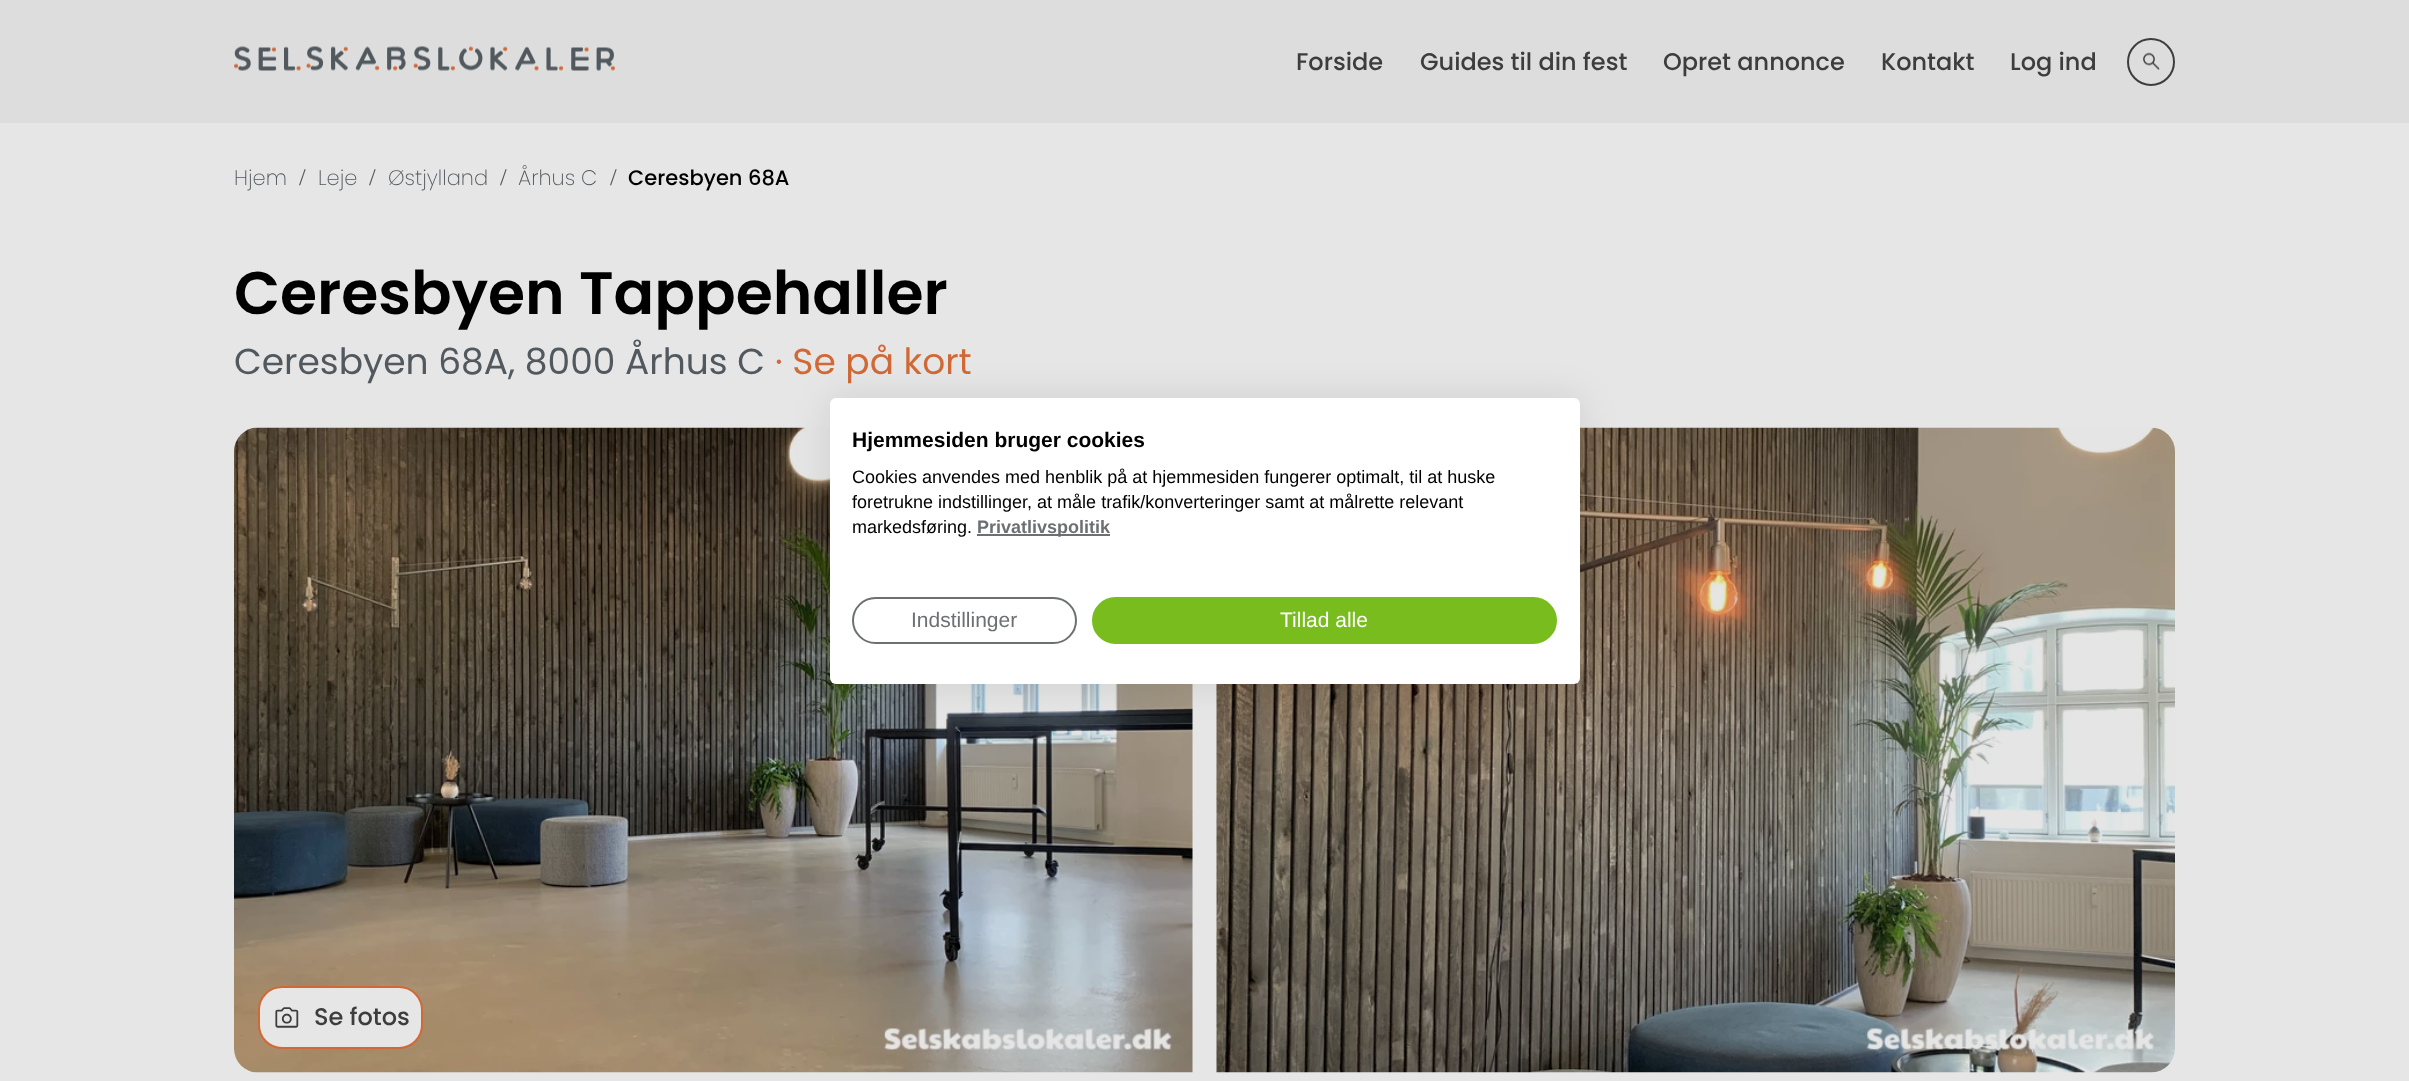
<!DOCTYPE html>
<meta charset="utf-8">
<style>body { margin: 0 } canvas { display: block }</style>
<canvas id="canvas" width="2409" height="1081"></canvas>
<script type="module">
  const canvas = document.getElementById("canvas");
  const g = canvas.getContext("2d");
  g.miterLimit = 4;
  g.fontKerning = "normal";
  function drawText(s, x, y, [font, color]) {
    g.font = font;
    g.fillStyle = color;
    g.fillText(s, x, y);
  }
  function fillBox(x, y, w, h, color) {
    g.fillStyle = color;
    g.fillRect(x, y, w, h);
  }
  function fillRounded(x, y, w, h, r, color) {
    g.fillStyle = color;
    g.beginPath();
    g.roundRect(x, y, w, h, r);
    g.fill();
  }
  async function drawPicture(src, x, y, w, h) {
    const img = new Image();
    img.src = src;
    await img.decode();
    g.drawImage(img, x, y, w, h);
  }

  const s1 = ["500 24px Poppins", "#3D3D3D"];
  const s2 = ["200 21px Poppins", "#51595F"];
  const s3 = ["24px Liberation Serif", "#51595F"];
  const s4 = ["500 21px Poppins", "#000000"];
  const s5 = ["600 60px Poppins", "#000000"];
  const s6 = ["36px Poppins", "#51595F"];
  const s7 = ["36px Poppins", "#D16937"];
  const s8 = ["bold 21px Liberation Sans", "#000000"];
  const s9 = ["18px Liberation Sans", "#000000"];
  const s10 = ["bold 18px Liberation Sans", "#6C7072"];
  const s11 = ["21px Liberation Sans", "#6C7072"];
  const s12 = ["21px Liberation Sans", "#FFFFFF"];

  fillBox(0, 0, 2409, 1081, "#E6E6E6");
  fillBox(0, 0, 2409, 123, "#DDDDDD");
  await drawPicture("pic1.png", 234, 46, 381, 25);
  drawText("Forside", 1296, 70, s1);
  drawText("Guides til din fest", 1420, 70, s1);
  drawText("Opret annonce", 1663, 70, s1);
  drawText("Kontakt", 1881, 70, s1);
  drawText("Log ind", 2010, 70, s1);
  g.beginPath();
  g.arc(2151, 62, 23, 0, Math.PI * 2);
  g.strokeStyle = "#3D3D3D";
  g.lineWidth = 2;
  g.stroke();
  await drawPicture("pic2.png", 2143, 52, 17, 18);
  drawText("Hjem", 234, 185, s2);
  drawText("/", 299, 185, s3);
  drawText("Leje", 318, 185, s2);
  drawText("/", 369, 185, s3);
  drawText("Østjylland", 388, 185, s2);
  drawText("/", 500, 185, s3);
  drawText("Århus C", 518, 185, s2);
  drawText("/", 610, 185, s3);
  drawText("Ceresbyen 68A", 628, 185, s4);
  drawText("Ceresbyen Tappehaller", 234, 314, s5);
  drawText("Ceresbyen 68A, 8000 Århus C", 234, 374, s6);
  drawText("· Se på kort", 775, 374, s7);
  await drawPicture("pic3.png", 234, 427, 959, 646);
  await drawPicture("pic4.png", 1216, 427, 959, 646);
  g.fillStyle = "#E6E6E6";
  g.beginPath();
  g.roundRect(259, 987, 163, 61, 23);
  g.fill();
  g.strokeStyle = "#D16937";
  g.stroke();
  await drawPicture("pic5.png", 275, 1007, 24, 21);
  drawText("Se fotos", 314, 1025, s1);
  g.fillStyle = "rgba(0, 0, 0, 0.1)";
  g.filter = "blur(18px)";
  g.beginPath();
  g.roundRect(830, 398, 750, 286, 6);
  g.fill();
  g.filter = "none";
  fillRounded(830, 398, 750, 286, 6, "#FFFFFF");
  drawText("Hjemmesiden bruger cookies", 852, 447, s8);
  drawText("Cookies anvendes med henblik på at hjemmesiden fungerer optimalt, til at huske", 852, 483, s9);
  drawText("foretrukne indstillinger, at måle trafik/konverteringer samt at målrette relevant", 852, 508, s9);
  drawText("markedsføring.", 852, 533, s9);
  fillBox(977, 534, 133, 2, "#6C7072");
  drawText("Privatlivspolitik", 977, 533, s10);
  g.beginPath();
  g.roundRect(853, 598, 223, 45, 22.5);
  g.strokeStyle = "#6C7072";
  g.stroke();
  drawText("Indstillinger", 911, 627, s11);
  g.fillStyle = "#78BC1E";
  g.beginPath();
  g.roundRect(1093, 598, 463, 45, 22.5);
  g.fill();
  g.strokeStyle = "#78BC1E";
  g.stroke();
  drawText("Tillad alle", 1280, 627, s12);
</script>
